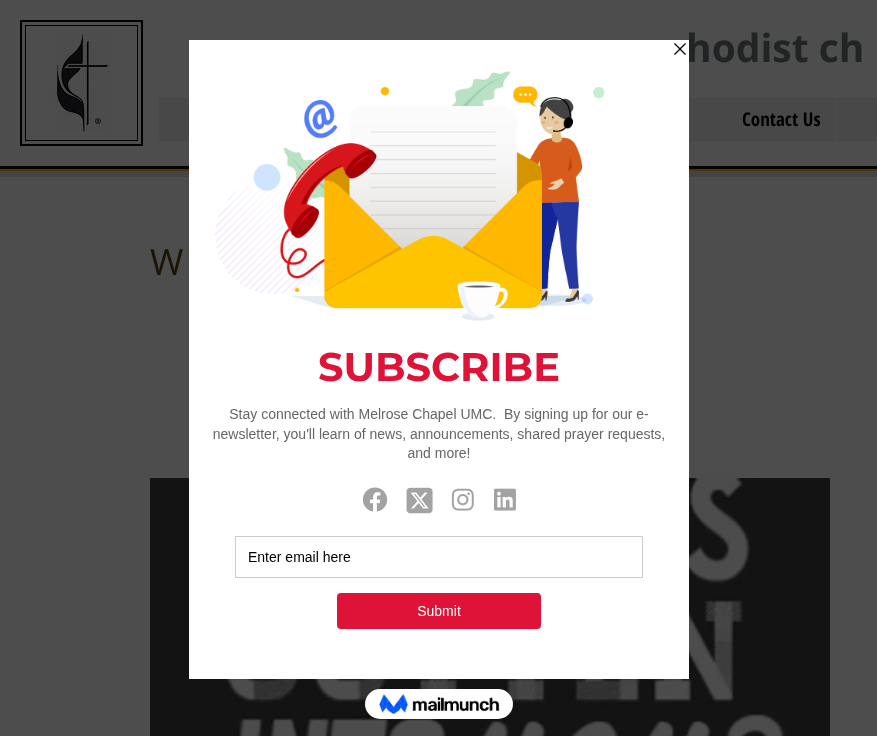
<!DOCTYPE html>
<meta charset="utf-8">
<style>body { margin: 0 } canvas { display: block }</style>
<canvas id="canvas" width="877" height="736"></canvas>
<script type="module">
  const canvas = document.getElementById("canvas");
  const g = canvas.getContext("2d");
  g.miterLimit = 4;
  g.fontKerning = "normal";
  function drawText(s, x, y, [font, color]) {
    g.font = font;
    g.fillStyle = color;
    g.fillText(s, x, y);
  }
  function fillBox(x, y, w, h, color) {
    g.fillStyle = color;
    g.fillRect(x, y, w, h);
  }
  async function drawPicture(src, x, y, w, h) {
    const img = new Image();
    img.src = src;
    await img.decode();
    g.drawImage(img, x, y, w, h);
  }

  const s1 = ["bold 39px Open Sans", "#212425"];
  const s2 = ["bold 19px Open Sans Condensed", "#000000"];
  const s3 = ["36px Open Sans", "#1A1405"];

  fillBox(0, 0, 877, 736, "#474344");
  fillBox(0, 0, 877, 166, "#4D4D4D");
  fillBox(0, 169, 877, 2, "#493909");
  g.strokeStyle = "#000000";
  g.lineWidth = 2;
  g.strokeRect(21, 21, 121, 124);
  await drawPicture("pic1.png", 55, 31, 56, 102);
  g.lineWidth = 1;
  g.strokeRect(25.5, 25.5, 112, 115);
  drawText("hodist ch", 686, 62, s1);
  fillBox(159, 98, 718, 43, "#484848");
  fillBox(689, 98, 1, 43, "#4D4D4D");
  drawText("Contact Us", 742, 126, s2);
  fillBox(836, 98, 1, 43, "#4D4D4D");
  fillBox(0, 166, 877, 3, "#050505");
  fillBox(0, 177, 877, 559, "#4D4D4D");
  drawText("W", 150, 275, s3);
  await drawPicture("pic2.png", 150, 478, 680, 258);
  await drawPicture("pic3.png", 189, 40, 500, 679);
</script>
